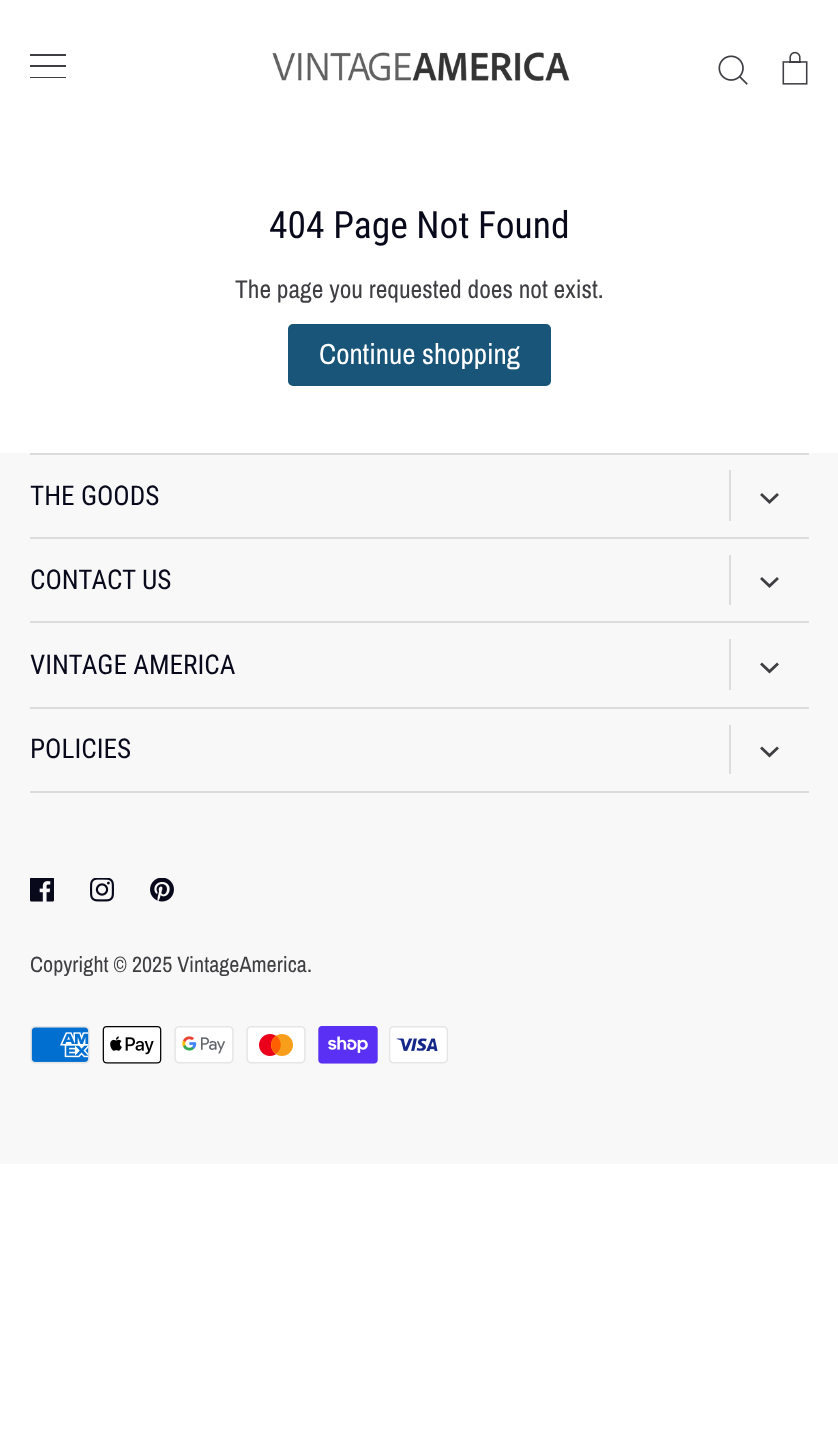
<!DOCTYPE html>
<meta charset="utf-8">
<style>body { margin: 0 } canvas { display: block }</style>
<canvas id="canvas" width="838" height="1448"></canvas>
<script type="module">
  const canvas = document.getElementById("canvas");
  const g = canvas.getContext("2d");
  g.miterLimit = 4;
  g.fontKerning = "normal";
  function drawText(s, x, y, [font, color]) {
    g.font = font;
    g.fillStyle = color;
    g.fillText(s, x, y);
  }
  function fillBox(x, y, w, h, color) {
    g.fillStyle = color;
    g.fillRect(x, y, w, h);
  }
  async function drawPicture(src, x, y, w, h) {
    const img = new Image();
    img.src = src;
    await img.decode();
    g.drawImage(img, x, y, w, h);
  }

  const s1 = ["37.5px Roboto Condensed", "#080A1C"];
  const s2 = ["25.5px Archivo Narrow", "#3F3F43"];
  const s3 = ["29px Archivo Narrow", "#FFFFFF"];
  const s4 = ["27.25px Roboto Condensed", "#080A1C"];
  const s5 = ["22.1px Archivo Narrow", "#3F3F43"];

  fillBox(0, 0, 838, 1448, "#FFFFFF");
  fillBox(30, 54, 36, 2, "#3F3F43");
  fillBox(30, 65, 36, 2, "#3F3F43");
  fillBox(30, 77, 36, 1, "#3F3F43");
  await drawPicture("pic1.png", 272, 52, 298, 29);
  await drawPicture("pic2.png", 718, 55, 30, 30);
  await drawPicture("pic3.png", 782, 51, 26, 34);
  drawText("404 Page Not Found", 269, 238, s1);
  drawText("The page you requested does not exist.", 235, 298, s2);
  g.fillStyle = "#185578";
  g.beginPath();
  g.roundRect(289, 325, 261, 60, 4);
  g.fill();
  g.strokeStyle = "#185578";
  g.lineWidth = 2;
  g.stroke();
  drawText("Continue shopping", 319, 364, s3);
  fillBox(0, 453, 838, 711, "#F8F8F8");
  fillBox(30, 453, 779, 2, "#DCDCDD");
  fillBox(30, 537, 779, 2, "#DCDCDD");
  drawText("THE GOODS", 30, 505, s4);
  fillBox(729, 470, 2, 51, "#DCDCDD");
  g.beginPath();
  g.moveTo(761, 494);
  g.lineTo(769.5, 502);
  g.lineTo(778, 494);
  g.strokeStyle = "#3F3F43";
  g.lineWidth = 2.8;
  g.stroke();
  fillBox(30, 621, 779, 2, "#DCDCDD");
  drawText("CONTACT US", 30, 589, s4);
  fillBox(729, 555, 2, 50, "#DCDCDD");
  g.beginPath();
  g.moveTo(761, 578);
  g.lineTo(769.5, 586);
  g.lineTo(778, 578);
  g.stroke();
  fillBox(30, 707, 779, 2, "#DCDCDD");
  drawText("VINTAGE AMERICA", 30, 674, s4);
  fillBox(729, 639, 2, 51, "#DCDCDD");
  g.beginPath();
  g.moveTo(761, 663.5);
  g.lineTo(769.5, 671.5);
  g.lineTo(778, 663.5);
  g.stroke();
  fillBox(30, 791, 779, 2, "#DCDCDD");
  drawText("POLICIES", 30, 758, s4);
  fillBox(729, 725, 2, 49, "#DCDCDD");
  g.beginPath();
  g.moveTo(761, 747.5);
  g.lineTo(769.5, 755.5);
  g.lineTo(778, 747.5);
  g.stroke();
  await drawPicture("pic4.png", 30, 878, 24, 24);
  await drawPicture("pic5.png", 90, 878, 24, 24);
  await drawPicture("pic6.png", 150, 878, 24, 24);
  drawText("Copyright © 2025 VintageAmerica.", 30, 972, s5);
  await drawPicture("pic7.png", 30, 1026, 60, 38);
  await drawPicture("pic8.png", 102, 1026, 60, 38);
  await drawPicture("pic9.png", 174, 1026, 60, 38);
  await drawPicture("pic10.png", 246, 1026, 60, 38);
  await drawPicture("pic11.png", 318, 1026, 60, 38);
  await drawPicture("pic12.png", 389, 1026, 59, 38);
</script>
